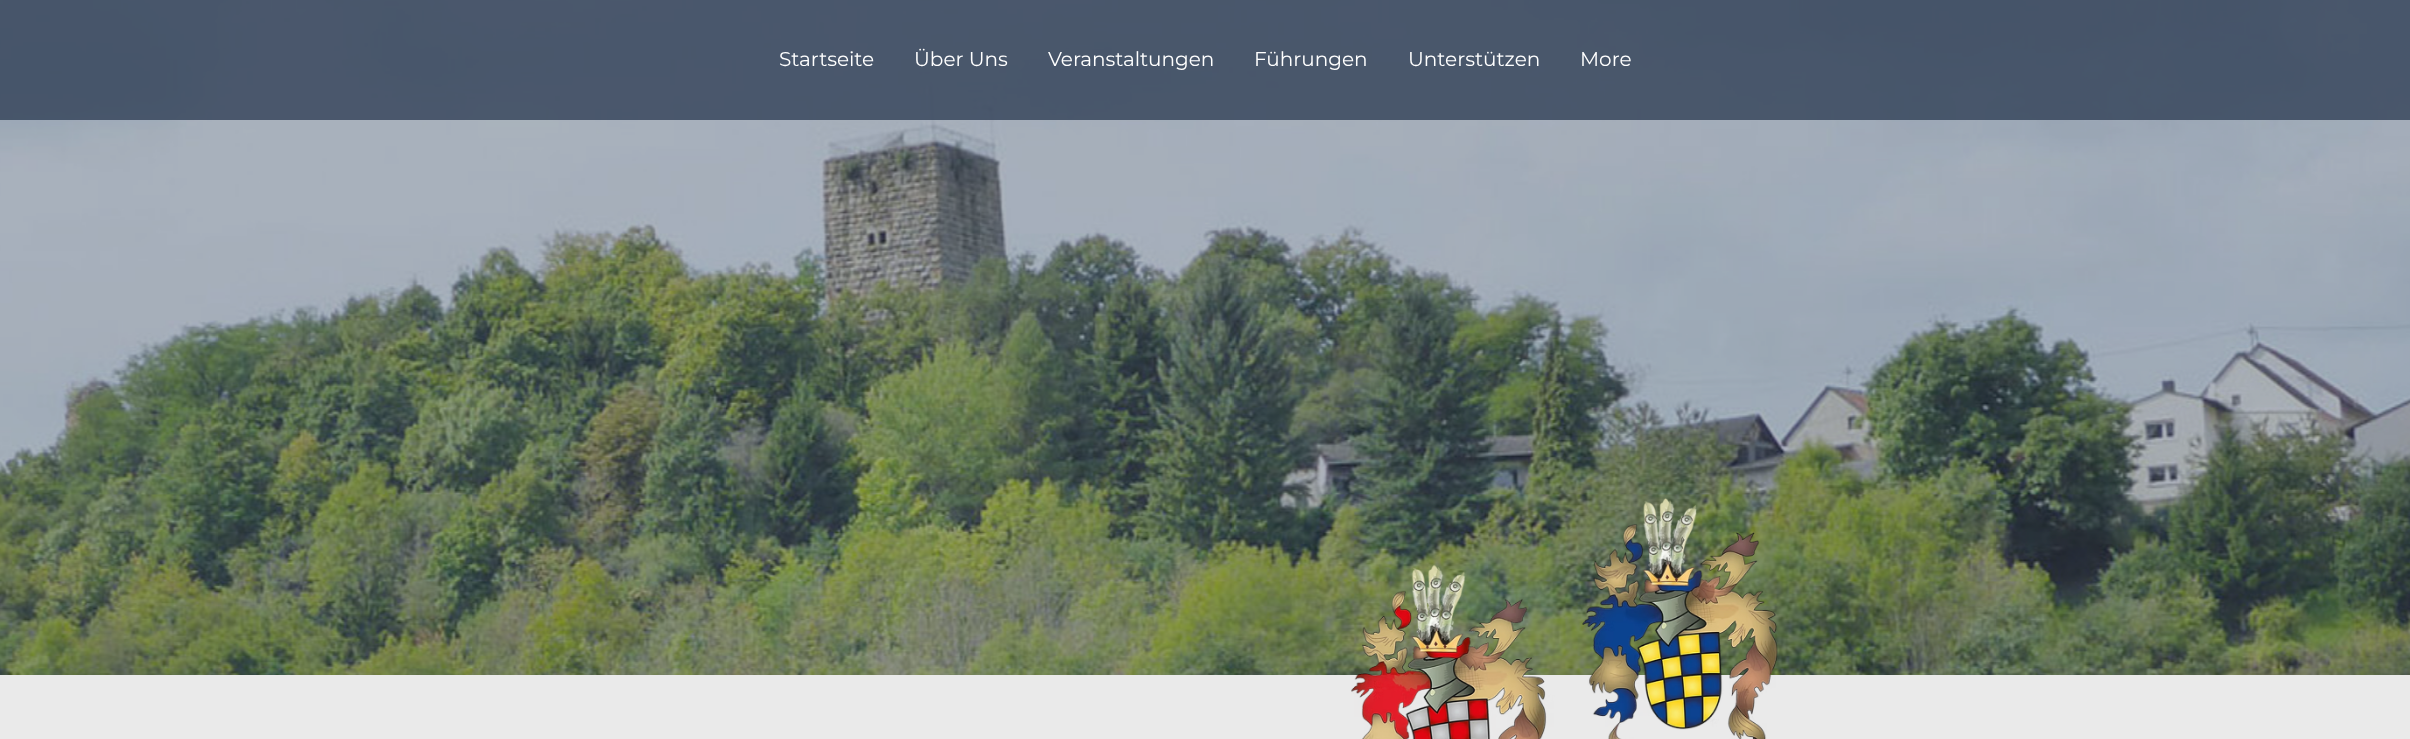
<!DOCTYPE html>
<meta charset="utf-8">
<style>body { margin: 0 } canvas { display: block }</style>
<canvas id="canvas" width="2410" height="739"></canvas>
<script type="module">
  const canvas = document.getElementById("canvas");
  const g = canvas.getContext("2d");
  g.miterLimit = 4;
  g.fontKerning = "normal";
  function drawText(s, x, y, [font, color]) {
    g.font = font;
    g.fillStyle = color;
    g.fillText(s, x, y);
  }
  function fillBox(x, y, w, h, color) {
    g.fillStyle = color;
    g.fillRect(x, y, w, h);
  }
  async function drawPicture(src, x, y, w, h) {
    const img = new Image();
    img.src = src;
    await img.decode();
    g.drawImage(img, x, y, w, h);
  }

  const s1 = ["20px Montserrat", "#FFFFFF"];

  fillBox(0, 0, 2410, 739, "#EAEAEA");
  await drawPicture("pic1.png", 0, 0, 2410, 675);
  await drawPicture("pic2.png", 1351, 498, 427, 241);
  fillBox(0, 0, 2410, 120, "rgba(50, 65, 88, 0.8)");
  drawText("Startseite", 779, 66, s1);
  drawText("Über Uns", 914, 66, s1);
  drawText("Veranstaltungen", 1048, 66, s1);
  drawText("Führungen", 1254, 66, s1);
  drawText("Unterstützen", 1408, 66, s1);
  drawText("More", 1580, 66, s1);
</script>
